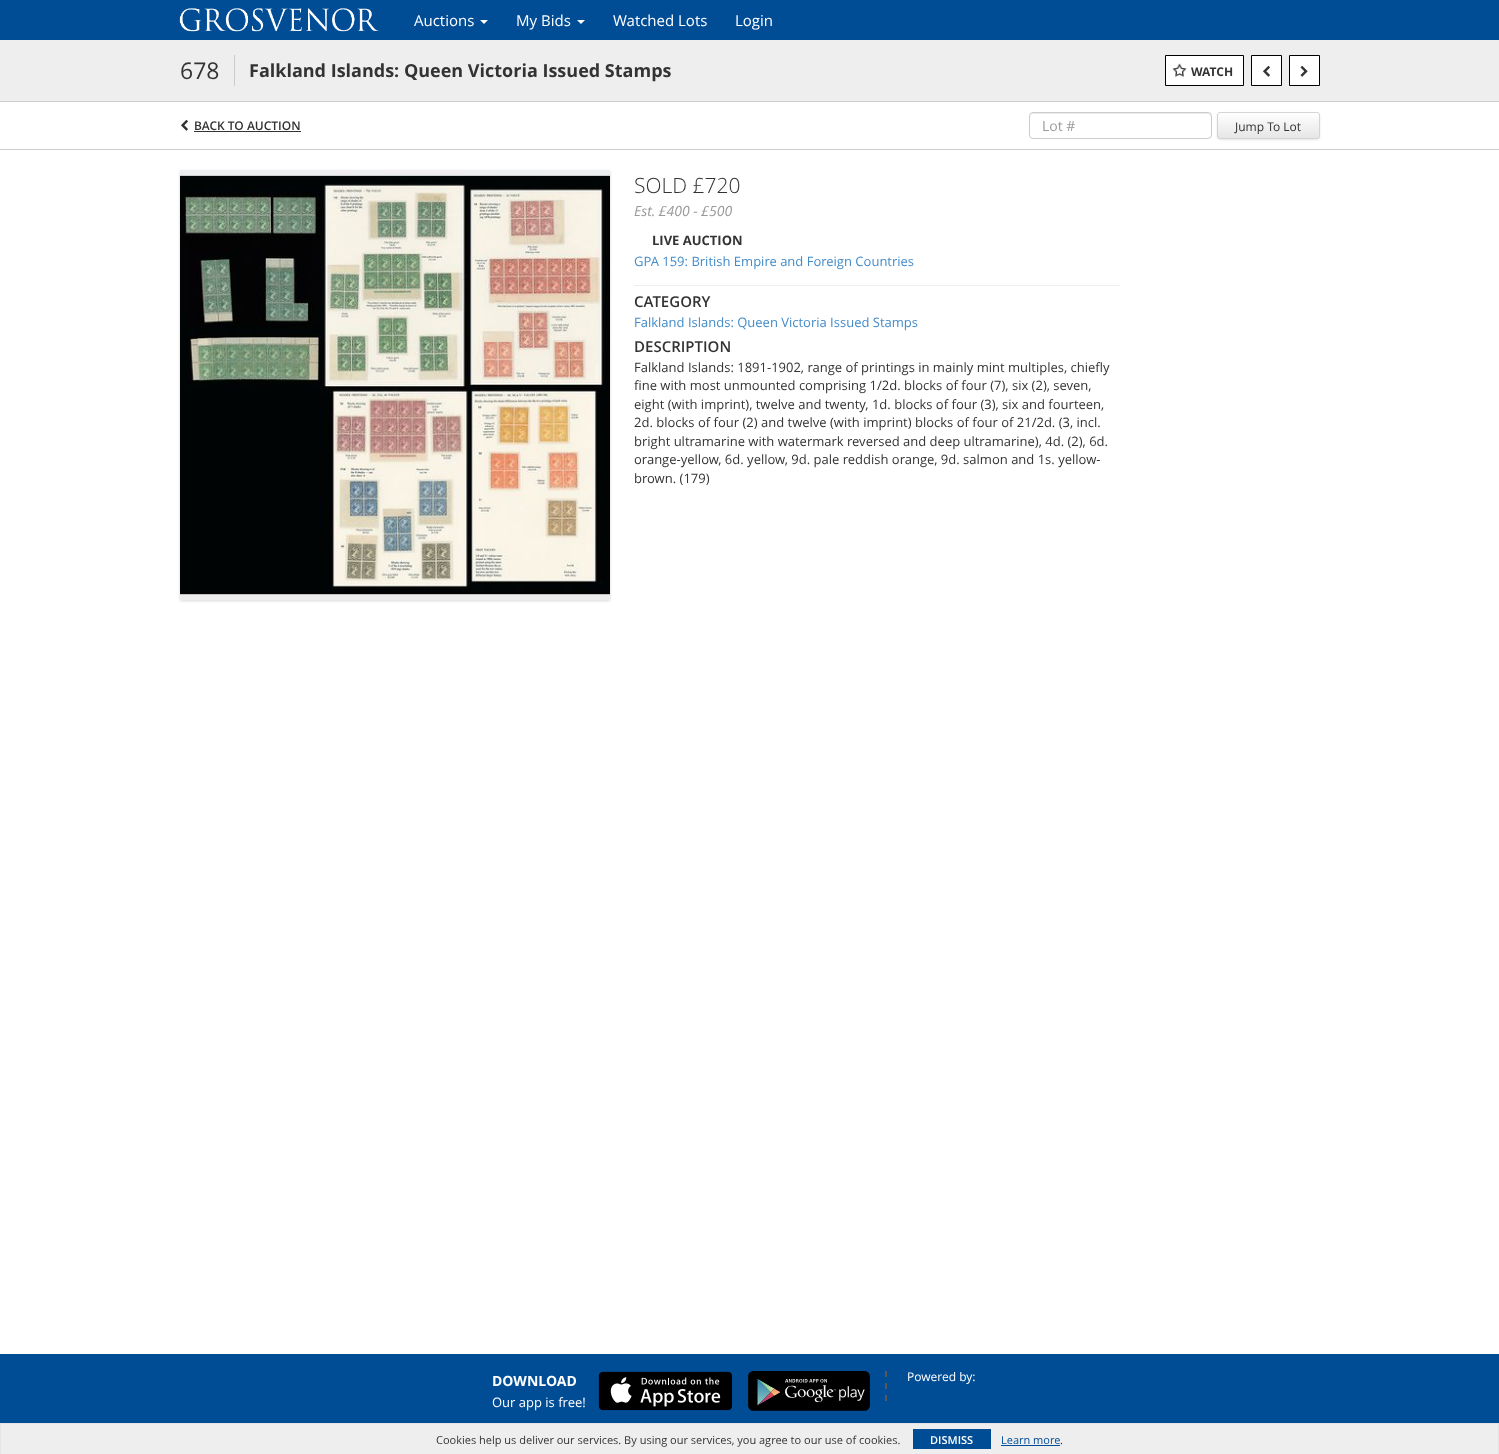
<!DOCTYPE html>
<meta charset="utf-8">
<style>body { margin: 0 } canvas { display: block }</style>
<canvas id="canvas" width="1499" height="1454"></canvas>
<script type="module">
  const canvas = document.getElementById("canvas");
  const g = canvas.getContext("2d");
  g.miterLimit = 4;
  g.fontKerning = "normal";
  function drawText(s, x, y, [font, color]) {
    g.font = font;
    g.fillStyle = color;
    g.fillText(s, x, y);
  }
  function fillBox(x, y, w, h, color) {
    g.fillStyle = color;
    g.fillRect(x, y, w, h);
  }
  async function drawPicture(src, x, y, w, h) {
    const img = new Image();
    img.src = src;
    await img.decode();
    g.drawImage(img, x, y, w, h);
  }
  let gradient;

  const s1 = ["15px Open Sans", "#FFFFFF"];
  const s2 = ["23px Open Sans", "#333333"];
  const s3 = ["bold 18px Open Sans", "#333333"];
  const s4 = ["bold 12px Open Sans", "#333333"];
  const s5 = ["600 12px Open Sans", "#333333"];
  const s6 = ["14px Open Sans", "#999999"];
  const s7 = ["12px Open Sans", "#333333"];
  const s8 = ["300 21px Open Sans", "#333333"];
  const s9 = ["italic 14px Open Sans", "#999999"];
  const s10 = ["bold 13px Open Sans", "#333333"];
  const s11 = ["13px Open Sans", "#428BCA"];
  const s12 = ["600 15px Open Sans", "#333333"];
  const s13 = ["13px Open Sans", "#333333"];
  const s14 = ["bold 14px Open Sans", "#FFFFFF"];
  const s15 = ["13px Open Sans", "#FFFFFF"];
  const s16 = ["12px Open Sans", "#FFFFFF"];
  const s17 = ["11px Open Sans", "#333333"];
  const s18 = ["600 11px Open Sans", "#FFFFFF"];
  const s19 = ["11px Open Sans", "#004D96"];

  fillBox(0, 0, 1499, 1454, "#FFFFFF");
  fillBox(0, 0, 1499, 40, "#004D96");
  await drawPicture("pic1.png", 179, 8, 200, 24);
  drawText("Auctions", 414, 26, s1);
  g.beginPath();
  g.moveTo(480, 20);
  g.lineTo(488, 20);
  g.lineTo(484, 24);
  g.closePath();
  g.fill();
  drawText("My Bids", 516, 26, s1);
  g.beginPath();
  g.moveTo(577, 20);
  g.lineTo(585, 20);
  g.lineTo(581, 24);
  g.closePath();
  g.fill();
  drawText("Watched Lots", 613, 26, s1);
  drawText("Login", 735, 26, s1);
  fillBox(0, 40, 1499, 61, "#EEEEEE");
  fillBox(0, 101, 1499, 1, "#CCCCCC");
  drawText("678", 180, 79, s2);
  fillBox(234, 55, 1, 31, "#CCCCCC");
  drawText("Falkland Islands: Queen Victoria Issued Stamps", 249, 77, s3);
  g.fillStyle = "#FFFFFF";
  g.beginPath();
  g.rect(1165.5, 55.5, 78, 30);
  g.fill();
  g.strokeStyle = "#000000";
  g.stroke();
  await drawPicture("pic2.png", 1172, 63, 15, 14);
  drawText("WATCH", 1191, 76, s4);
  g.fillStyle = "#FFFFFF";
  g.beginPath();
  g.rect(1251.5, 55.5, 30, 30);
  g.fill();
  g.stroke();
  await drawPicture("pic3.png", 1263, 65, 7, 12);
  g.beginPath();
  g.rect(1289.5, 55.5, 30, 30);
  g.fill();
  g.stroke();
  await drawPicture("pic4.png", 1300, 65, 8, 12);
  await drawPicture("pic3.png", 181, 119, 7, 12);
  drawText("BACK TO AUCTION", 194, 130, s5);
  fillBox(194, 131, 107, 1, "#333333");
  g.fillStyle = "#ECECEC";
  g.beginPath();
  g.moveTo(1033, 114);
  g.lineTo(1209, 114);
  g.lineTo(1210, 115);
  g.lineTo(1211, 117);
  g.lineTo(1211, 116);
  g.bezierCurveTo(1211, 114, 1210, 113, 1208, 113);
  g.lineTo(1033, 113);
  g.bezierCurveTo(1031, 113, 1030, 114, 1030, 116);
  g.lineTo(1030, 117);
  g.bezierCurveTo(1030, 115, 1031, 114, 1033, 114);
  g.closePath();
  g.fill();
  g.beginPath();
  g.roundRect(1029.5, 112.5, 182, 26, 3.5);
  g.strokeStyle = "#CCCCCC";
  g.stroke();
  drawText("Lot #", 1042, 131, s6);
  g.fillStyle = "rgba(0, 0, 0, 0.2)";
  g.filter = "blur(1.5px)";
  g.beginPath();
  g.roundRect(1218, 114, 101, 25, 2);
  g.fill();
  g.filter = "none";
  g.save();
  g.beginPath();
  g.roundRect(1217, 112, 103, 27, 3);
  g.clip();
  gradient = g.createLinearGradient(1269, 113, 1269, 138);
  gradient.addColorStop(0, "#FFFFFF");
  gradient.addColorStop(1, "#E6E6E6");
  g.fillStyle = gradient;
  g.fillRect(1217, 113, 103, 25);
  g.restore();
  g.fillStyle = "rgba(255, 255, 255, 0.4)";
  g.beginPath();
  g.moveTo(1220, 114);
  g.lineTo(1317, 114);
  g.bezierCurveTo(1318, 114, 1319, 115, 1319, 116);
  g.bezierCurveTo(1319, 115, 1319, 113, 1317, 113);
  g.lineTo(1236, 113);
  g.bezierCurveTo(1235, 113, 1218, 108, 1218, 116);
  g.bezierCurveTo(1218, 115, 1219, 114, 1220, 114);
  g.closePath();
  g.fill();
  g.beginPath();
  g.roundRect(1217.5, 112.5, 102, 26, 2.5);
  g.strokeStyle = "#D4D4D4";
  g.stroke();
  drawText("Jump To Lot", 1235, 131, s7);
  fillBox(0, 149, 1499, 1, "#CCCCCC");
  g.fillStyle = "#DAD9D7";
  g.filter = "blur(1.5px)";
  g.beginPath();
  g.rect(180, 171, 430, 430);
  g.fill();
  g.filter = "none";
  await drawPicture("pic5.png", 180, 170, 430, 430);
  drawText("SOLD £720", 634, 193, s8);
  drawText("Est. £400 - £500", 634, 216, s9);
  drawText("LIVE AUCTION", 652, 245, s10);
  drawText("GPA 159: British Empire and Foreign Countries", 634, 266, s11);
  fillBox(634, 285, 486, 1, "#EEEEEE");
  drawText("CATEGORY", 634, 307, s12);
  drawText("Falkland Islands: Queen Victoria Issued Stamps", 634, 327, s11);
  drawText("DESCRIPTION", 634, 352, s12);
  drawText("Falkland Islands: 1891-1902, range of printings in mainly mint multiples, chiefly", 634, 372, s13);
  drawText("fine with most unmounted comprising 1/2d. blocks of four (7), six (2), seven,", 634, 390, s13);
  drawText("eight (with imprint), twelve and twenty, 1d. blocks of four (3), six and fourteen,", 634, 409, s13);
  drawText("2d. blocks of four (2) and twelve (with imprint) blocks of four of 21/2d. (3, incl.", 634, 427, s13);
  drawText("bright ultramarine with watermark reversed and deep ultramarine), 4d. (2), 6d.", 634, 446, s13);
  drawText("orange-yellow, 6d. yellow, 9d. pale reddish orange, 9d. salmon and 1s. yellow-", 634, 464, s13);
  drawText("brown. (179)", 634, 483, s13);
  fillBox(0, 1354, 1499, 69, "#004D96");
  drawText("DOWNLOAD", 492, 1386, s14);
  drawText("Our app is free!", 492, 1407, s15);
  await drawPicture("pic6.png", 598, 1371, 135, 40);
  await drawPicture("pic7.png", 748, 1371, 122, 40);
  g.beginPath();
  g.moveTo(886, 1371);
  g.lineTo(886, 1377);
  g.moveTo(886, 1383);
  g.lineTo(886, 1389);
  g.moveTo(886, 1395);
  g.lineTo(886, 1401);
  g.strokeStyle = "#595959";
  g.lineWidth = 2;
  g.stroke();
  drawText("Powered by:", 907, 1381, s16);
  fillBox(1, 1424, 1497, 30, "#EEEEEE");
  fillBox(0, 1423, 1499, 1, "#E4E4E4");
  fillBox(1498, 1423, 1, 31, "#E4E4E4");
  fillBox(0, 1423, 1, 31, "#E4E4E4");
  drawText("Cookies help us deliver our services. By using our services, you agree to our use of cookies.", 436, 1444, s17);
  fillBox(913, 1429, 78, 20, "#004D96");
  drawText("DISMISS", 930, 1444, s18);
  drawText("Learn more", 1001, 1444, s19);
  fillBox(1001, 1445, 59, 1, "#004D96");
  drawText(".", 1060, 1444, s17);
</script>
